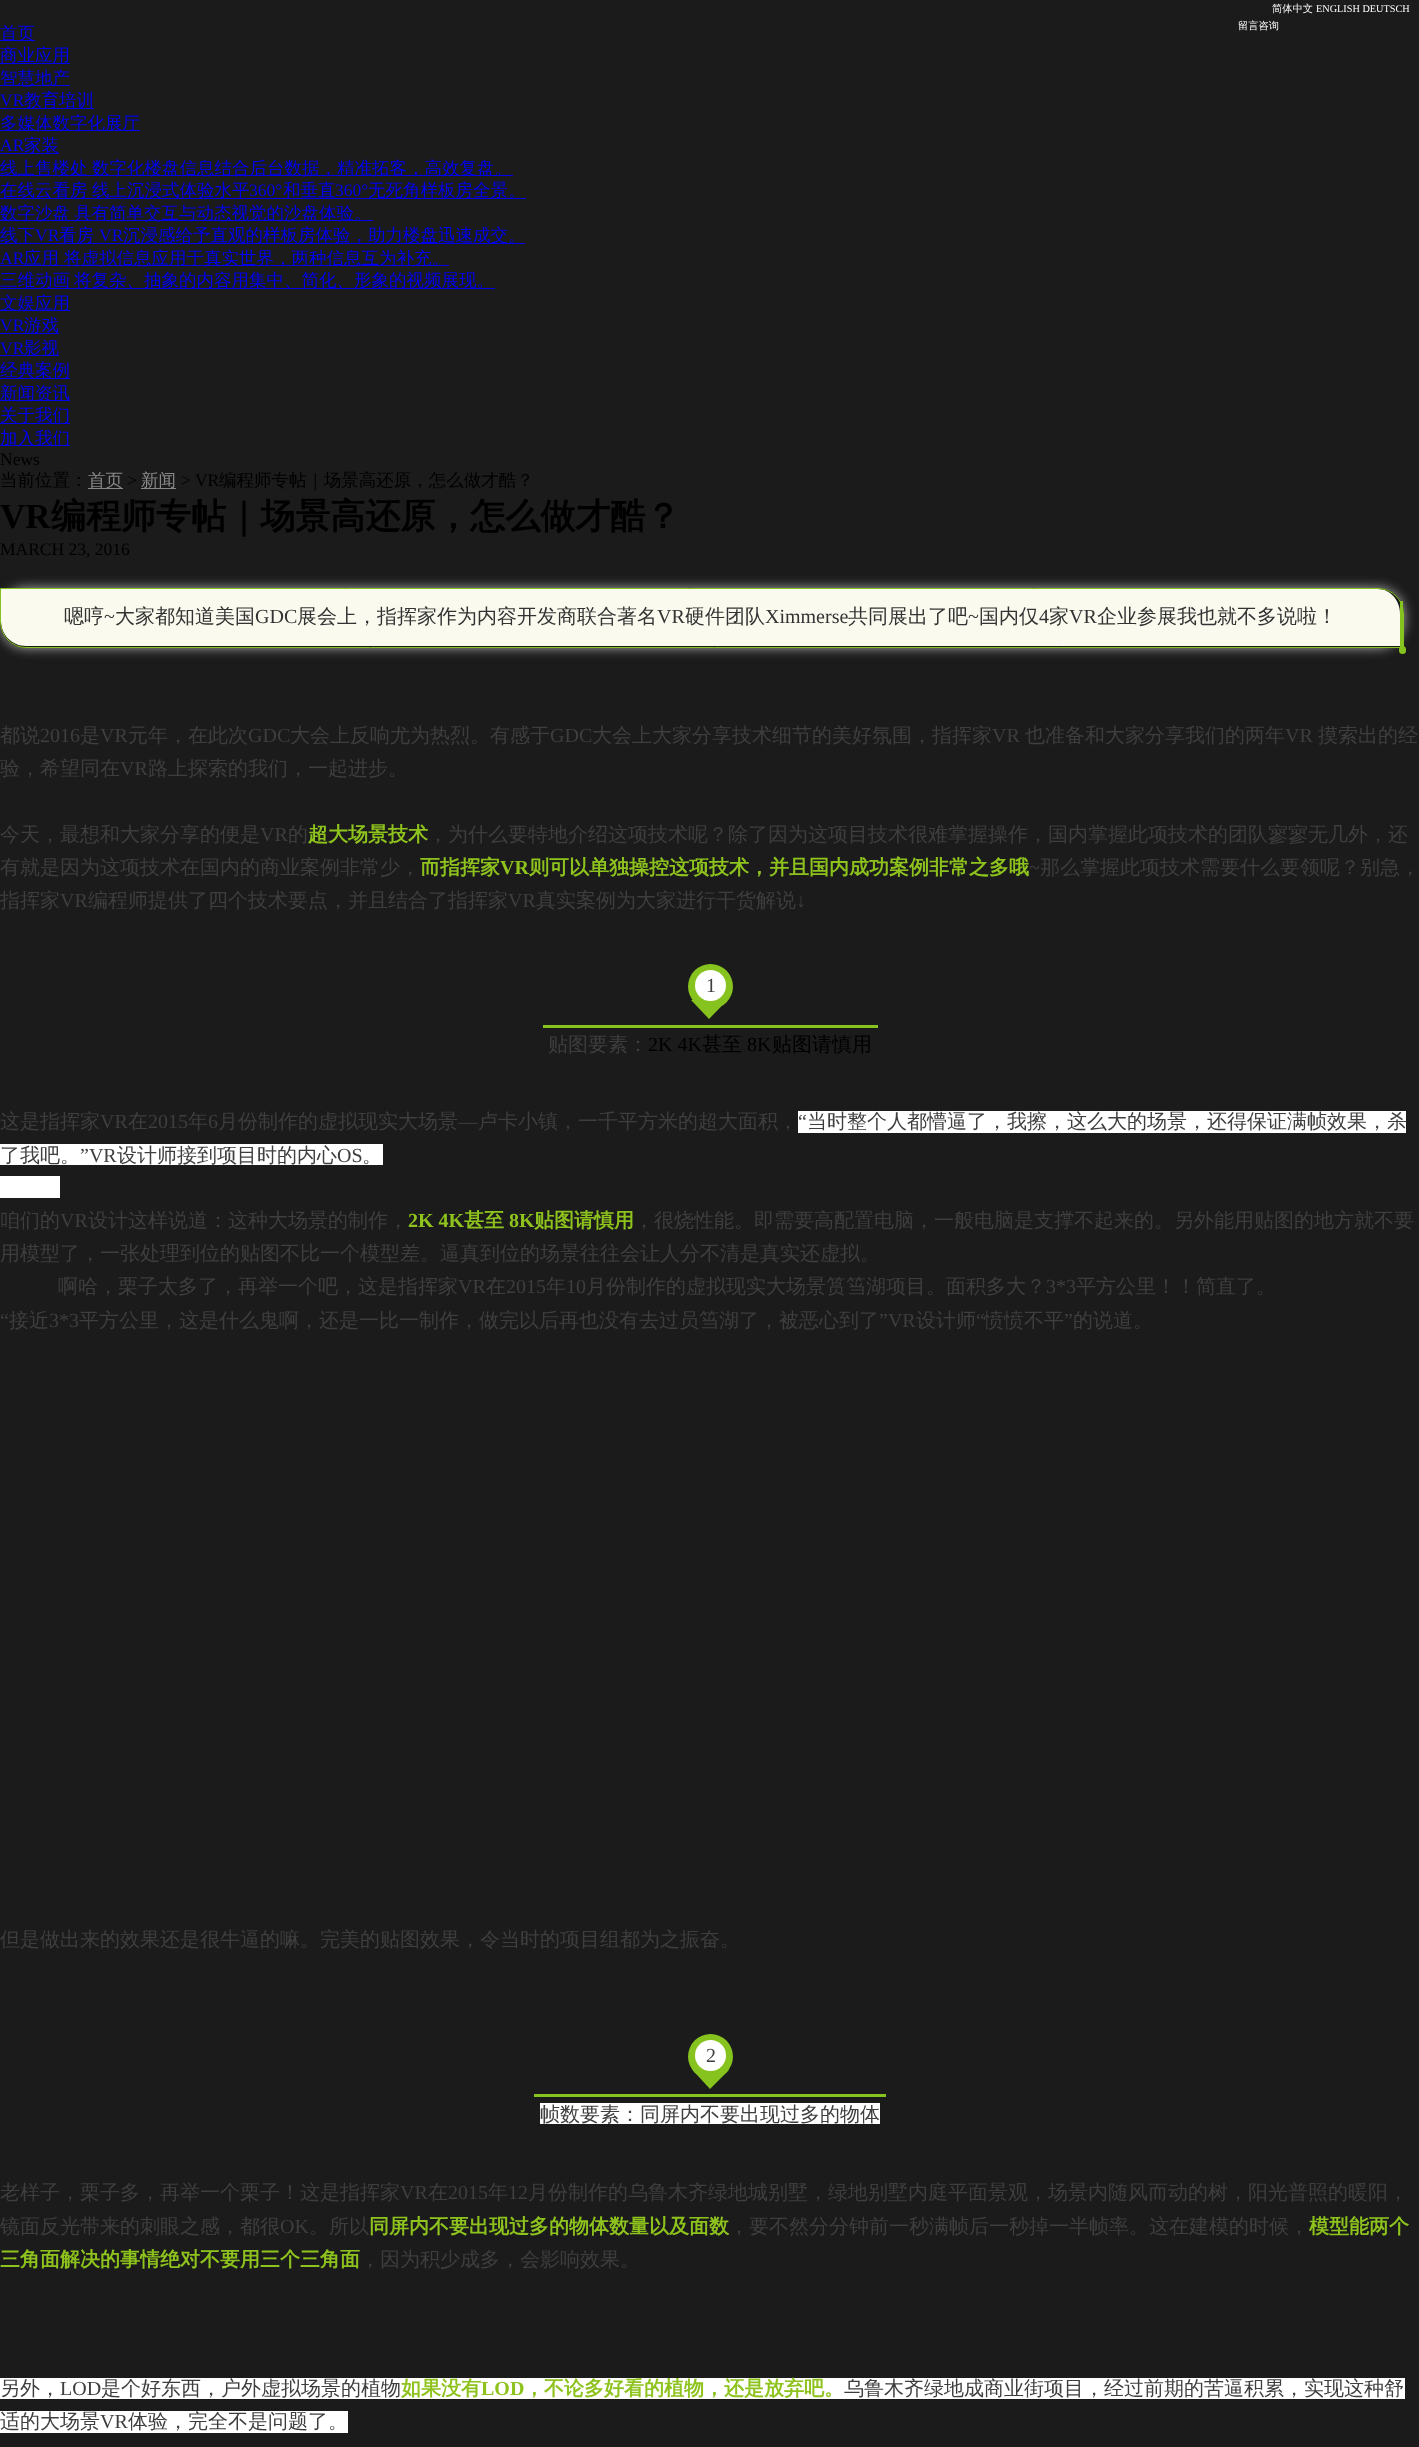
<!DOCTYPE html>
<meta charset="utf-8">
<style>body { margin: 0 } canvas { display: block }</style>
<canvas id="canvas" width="1419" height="2447"></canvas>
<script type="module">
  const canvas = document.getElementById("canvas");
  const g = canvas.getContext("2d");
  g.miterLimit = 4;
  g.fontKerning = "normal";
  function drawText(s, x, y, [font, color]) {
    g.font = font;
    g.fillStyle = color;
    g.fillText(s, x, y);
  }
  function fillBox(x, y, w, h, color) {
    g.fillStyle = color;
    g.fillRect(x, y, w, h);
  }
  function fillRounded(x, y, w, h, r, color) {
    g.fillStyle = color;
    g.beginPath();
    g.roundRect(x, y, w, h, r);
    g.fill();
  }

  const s1 = ["500 10.25px WenQuanYi Zen Hei", "#FFFFFF"];
  const s2 = ["10.25px Liberation Serif", "#FFFFFF"];
  const s3 = ["500 17.5px WenQuanYi Zen Hei", "#0000EE"];
  const s4 = ["17.5px Liberation Serif", "#0000EE"];
  const s5 = ["17.5px Liberation Serif", "#000000"];
  const s6 = ["500 17.5px WenQuanYi Zen Hei", "#000000"];
  const s7 = ["500 17.5px WenQuanYi Zen Hei", "#888888"];
  const s8 = ["bold 35px Liberation Serif", "#000000"];
  const s9 = ["bold 35px WenQuanYi Zen Hei", "#000000"];
  const s10 = ["500 20px WenQuanYi Zen Hei", "#333333"];
  const s11 = ["20px Liberation Serif", "#333333"];
  const s12 = ["500 20px WenQuanYi Zen Hei", "#3E3E3E"];
  const s13 = ["20px Liberation Serif", "#3E3E3E"];
  const s14 = ["bold 20px WenQuanYi Zen Hei", "#8EC31E"];
  const s15 = ["bold 20px Liberation Serif", "#8EC31E"];
  const s16 = ["20px Liberation Serif", "#000000"];
  const s17 = ["500 20px WenQuanYi Zen Hei", "#000000"];

  fillBox(0, 0, 1419, 2447, "#1B1B1B");
  drawText("简体中文", 1272, 12, s1);
  drawText("ENGLISH DEUTSCH", 1316, 12, s2);
  drawText("留言咨询", 1238, 29, s1);
  fillBox(0, 40, 35, 1, "#0000EE");
  drawText("首页", 0, 39, s3);
  fillBox(0, 63, 70, 1, "#0000EE");
  drawText("商业应用", 0, 61, s3);
  fillBox(0, 85, 70, 1, "#0000EE");
  drawText("智慧地产", 0, 84, s3);
  drawText("VR", 0, 106, s4);
  fillBox(0, 108, 94, 1, "#0000EE");
  drawText("教育培训", 24, 106, s3);
  fillBox(0, 130, 140, 1, "#0000EE");
  drawText("多媒体数字化展厅", 0, 129, s3);
  drawText("AR", 0, 151, s4);
  fillBox(0, 153, 59, 1, "#0000EE");
  drawText("家装", 24, 151, s3);
  fillBox(0, 175, 513, 1, "#0000EE");
  drawText("线上售楼处", 0, 174, s3);
  drawText("数字化楼盘信息结合后台数据，精准拓客，高效复盘。", 92, 174, s3);
  fillBox(0, 198, 526, 1, "#0000EE");
  drawText("在线云看房", 0, 196, s3);
  drawText("线上沉浸式体验水平", 92, 196, s3);
  drawText("360°", 249, 196, s4);
  drawText("和垂直", 283, 196, s3);
  drawText("360°", 335, 196, s4);
  drawText("无死角样板房全景。", 368, 196, s3);
  fillBox(0, 220, 373, 1, "#0000EE");
  drawText("数字沙盘", 0, 219, s3);
  drawText("具有简单交互与动态视觉的沙盘体验。", 74, 219, s3);
  fillBox(0, 243, 525, 1, "#0000EE");
  drawText("线下", 0, 241, s3);
  drawText("VR", 35, 241, s4);
  drawText("看房", 59, 241, s3);
  drawText("VR", 99, 241, s4);
  drawText("沉浸感给予直观的样板房体验，助力楼盘迅速成交。", 123, 241, s3);
  drawText("AR", 0, 264, s4);
  fillBox(0, 265, 449, 1, "#0000EE");
  drawText("应用", 24, 264, s3);
  drawText("将虚拟信息应用于真实世界，两种信息互为补充。", 64, 264, s3);
  fillBox(0, 288, 495, 1, "#0000EE");
  drawText("三维动画", 0, 286, s3);
  drawText("将复杂、抽象的内容用集中、简化、形象的视频展现。", 74, 286, s3);
  fillBox(0, 310, 70, 1, "#0000EE");
  drawText("文娱应用", 0, 309, s3);
  drawText("VR", 0, 331, s4);
  fillBox(0, 333, 59, 1, "#0000EE");
  drawText("游戏", 24, 331, s3);
  drawText("VR", 0, 354, s4);
  fillBox(0, 355, 59, 1, "#0000EE");
  drawText("影视", 24, 354, s3);
  fillBox(0, 378, 70, 1, "#0000EE");
  drawText("经典案例", 0, 376, s3);
  fillBox(0, 400, 70, 1, "#0000EE");
  drawText("新闻资讯", 0, 399, s3);
  fillBox(0, 423, 70, 1, "#0000EE");
  drawText("关于我们", 0, 421, s3);
  fillBox(0, 445, 70, 1, "#0000EE");
  drawText("加入我们", 0, 444, s3);
  drawText("News", 0, 465, s5);
  drawText("当前位置：", 0, 486, s6);
  fillBox(88, 488, 35, 1, "#888888");
  drawText("首页", 88, 486, s7);
  drawText(">", 127, 486, s5);
  fillBox(141, 488, 35, 1, "#888888");
  drawText("新闻", 141, 486, s7);
  drawText("> VR", 181, 486, s5);
  drawText("编程师专帖｜场景高还原，怎么做才酷？", 219, 486, s6);
  drawText("VR", 0, 528, s8);
  drawText("编程师专帖｜场景高还原，怎么做才酷？", 51, 528, s9);
  drawText("MARCH 23, 2016", 0, 555, s5);
  g.save();
  g.beginPath();
  g.moveTo(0, 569);
  g.lineTo(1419, 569);
  g.lineTo(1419, 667);
  g.lineTo(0, 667);
  g.closePath();
  g.moveTo(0, 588);
  g.lineTo(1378, 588);
  g.bezierCurveTo(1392.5, 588, 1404, 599.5, 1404, 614);
  g.lineTo(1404, 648);
  g.lineTo(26, 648);
  g.bezierCurveTo(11.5, 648, 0, 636.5, 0, 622);
  g.closePath();
  g.clip("evenodd");
  g.fillStyle = "#AAAAAA";
  g.filter = "blur(6px)";
  g.beginPath();
  g.roundRect(0, 588, 1404, 60, 26);
  g.fill();
  g.filter = "none";
  g.restore();
  g.fillStyle = "#FAFAEF";
  g.beginPath();
  g.moveTo(1, 589);
  g.lineTo(1378, 589);
  g.bezierCurveTo(1390, 589, 1400, 600, 1400, 614);
  g.lineTo(1400, 646);
  g.lineTo(26, 646);
  g.bezierCurveTo(12, 646, 1, 635, 1, 621);
  g.closePath();
  g.fill();
  g.beginPath();
  g.roundRect(0.5, 588.5, 1403, 59, [0, 25.5, 0, 25.5]);
  g.strokeStyle = "#86C31E";
  g.stroke();
  fillBox(1400, 601, 3, 47, "#86C31E");
  drawText("嗯哼", 64, 623, s10);
  drawText("~", 104, 623, s11);
  drawText("大家都知道美国", 115, 623, s10);
  drawText("GDC", 255, 623, s11);
  drawText("展会上，指挥家作为内容开发商联合著名", 297, 623, s10);
  drawText("VR", 657, 623, s11);
  drawText("硬件团队", 685, 623, s10);
  drawText("Ximmerse", 765, 623, s11);
  drawText("共同展出了吧", 848, 623, s10);
  drawText("~", 968, 623, s11);
  drawText("国内仅", 979, 623, s10);
  drawText("4", 1039, 623, s11);
  drawText("家", 1049, 623, s10);
  drawText("VR", 1069, 623, s11);
  drawText("企业参展我也就不多说啦！", 1097, 623, s10);
  fillRounded(1399, 646, 7, 8, 3.5, "#86C31E");
  drawText("都说", 0, 742, s12);
  drawText("2016", 40, 742, s13);
  drawText("是", 80, 742, s12);
  drawText("VR", 100, 742, s13);
  drawText("元年，在此次", 128, 742, s12);
  drawText("GDC", 248, 742, s13);
  drawText("大会上反响尤为热烈。有感于", 290, 742, s12);
  drawText("GDC", 550, 742, s13);
  drawText("大会上大家分享技术细节的美好氛围，指挥家", 592, 742, s12);
  drawText("VR", 992, 742, s13);
  drawText("也准备和大家分享我们的两年", 1025, 742, s12);
  drawText("VR", 1285, 742, s13);
  drawText("摸索出的经", 1318, 742, s12);
  drawText("验，希望同在", 0, 775, s12);
  drawText("VR", 120, 775, s13);
  drawText("路上探索的我们，一起进步。", 148, 775, s12);
  drawText("今天，最想和大家分享的便是", 0, 841, s12);
  drawText("VR", 260, 841, s13);
  drawText("的", 288, 841, s12);
  drawText("超大场景技术", 308, 841, s14);
  drawText("，为什么要特地介绍这项技术呢？除了因为这项目技术很难掌握操作，国内掌握此项技术的团队寥寥无几外，还", 428, 841, s12);
  drawText("有就是因为这项技术在国内的商业案例非常少，", 0, 874, s12);
  drawText("而指挥家", 420, 874, s14);
  drawText("VR", 500, 874, s15);
  drawText("则可以单独操控这项技术，并且国内成功案例非常之多哦", 529, 874, s14);
  drawText("~", 1029, 874, s13);
  drawText("那么掌握此项技术需要什么要领呢？别急，", 1040, 874, s12);
  drawText("指挥家", 0, 907, s12);
  drawText("VR", 60, 907, s13);
  drawText("编程师提供了四个技术要点，并且结合了指挥家", 88, 907, s12);
  drawText("VR", 508, 907, s13);
  drawText("真实案例为大家进行干货解说", 536, 907, s12);
  drawText("↓", 796, 907, s13);
  g.fillStyle = "#86C31E";
  g.beginPath();
  g.moveTo(691, 1000);
  g.lineTo(727.5, 1000);
  g.lineTo(709, 1019);
  g.closePath();
  g.fill();
  g.beginPath();
  g.arc(710.5, 986.5, 22.5, 0, Math.PI * 2);
  g.fill();
  g.fillStyle = "#FFFFFF";
  g.beginPath();
  g.arc(710.5, 985.5, 15.5, 0, Math.PI * 2);
  g.fill();
  drawText("1", 706, 992, s13);
  fillBox(543, 1025, 335, 3, "#86C31E");
  drawText("贴图要素：", 548, 1051, s12);
  drawText("2K 4K", 648, 1051, s16);
  drawText("甚至", 702, 1051, s17);
  drawText("8K", 747, 1051, s16);
  drawText("贴图请慎用", 772, 1051, s17);
  drawText("这是指挥家", 0, 1128, s12);
  drawText("VR", 100, 1128, s13);
  drawText("在", 128, 1128, s12);
  drawText("2015", 148, 1128, s13);
  drawText("年", 188, 1128, s12);
  drawText("6", 208, 1128, s13);
  drawText("月份制作的虚拟现实大场景", 218, 1128, s12);
  drawText("卢卡小镇，一千平方米的超大面积，", 478, 1128, s12);
  fillBox(798, 1111, 608, 22, "#FFFFFF");
  drawText("“", 798, 1128, s13);
  drawText("当时整个人都懵逼了，我擦，这么大的场景，还得保证满帧效果，杀", 807, 1128, s12);
  drawText("—", 458, 1128, s13);
  fillBox(0, 1144, 383, 21, "#FFFFFF");
  drawText("了我吧。", 0, 1162, s12);
  drawText("”VR", 80, 1162, s13);
  drawText("设计师接到项目时的内心", 117, 1162, s12);
  drawText("OS", 337, 1162, s13);
  drawText("。", 362, 1162, s12);
  fillBox(0, 1176, 60, 22, "#FFFFFF");
  drawText("咱们的", 0, 1227, s12);
  drawText("VR", 60, 1227, s13);
  drawText("设计这样说道：这种大场景的制作，", 88, 1227, s12);
  drawText("2K 4K", 408, 1227, s15);
  drawText("甚至", 464, 1227, s14);
  drawText("8K", 509, 1227, s15);
  drawText("贴图请慎用", 534, 1227, s14);
  drawText("，很烧性能。即需要高配置电脑，一般电脑是支撑不起来的。另外能用贴图的地方就不要", 634, 1227, s12);
  drawText("用模型了，一张处理到位的贴图不比一个模型差。逼真到位的场景往往会让人分不清是真实还虚拟。", 0, 1260, s12);
  drawText("啊哈，栗子太多了，再举一个吧，这是指挥家", 58, 1293, s12);
  drawText("VR", 458, 1293, s13);
  drawText("在", 486, 1293, s12);
  drawText("2015", 506, 1293, s13);
  drawText("年", 546, 1293, s12);
  drawText("10", 566, 1293, s13);
  drawText("月份制作的虚拟现实大场景筼筜湖项目。面积多大？", 586, 1293, s12);
  drawText("3*3", 1046, 1293, s13);
  drawText("平方公里！！简直了。", 1076, 1293, s12);
  drawText("“", 0, 1327, s13);
  drawText("接近", 9, 1327, s12);
  drawText("3*3", 49, 1327, s13);
  drawText("平方公里，这是什么鬼啊，还是一比一制作，做完以后再也没有去过员筜湖了，被恶心到了", 79, 1327, s12);
  drawText("”VR", 879, 1327, s13);
  drawText("设计师", 916, 1327, s12);
  drawText("“", 976, 1327, s13);
  drawText("愤愤不平", 984, 1327, s12);
  drawText("”", 1064, 1327, s13);
  drawText("的说道。", 1073, 1327, s12);
  drawText("但是做出来的效果还是很牛逼的嘛。完美的贴图效果，令当时的项目组都为之振奋。", 0, 1946, s12);
  g.fillStyle = "#86C31E";
  g.beginPath();
  g.moveTo(692.5, 2070);
  g.lineTo(729, 2070);
  g.lineTo(710, 2089);
  g.closePath();
  g.fill();
  g.beginPath();
  g.arc(710.5, 2056.5, 22.5, 0, Math.PI * 2);
  g.fill();
  g.fillStyle = "#FFFFFF";
  g.beginPath();
  g.arc(710.5, 2055.5, 15.5, 0, Math.PI * 2);
  g.fill();
  drawText("2", 706, 2062, s13);
  fillBox(534, 2094, 352, 3, "#86C31E");
  fillBox(540, 2103, 340, 21, "#FFFFFF");
  drawText("帧数要素：同屏内不要出现过多的物体", 540, 2121, s12);
  drawText("老样子，栗子多，再举一个栗子！这是指挥家", 0, 2199, s12);
  drawText("VR", 400, 2199, s13);
  drawText("在", 428, 2199, s12);
  drawText("2015", 448, 2199, s13);
  drawText("年", 488, 2199, s12);
  drawText("12", 508, 2199, s13);
  drawText("月份制作的乌鲁木齐绿地城别墅，绿地别墅内庭平面景观，场景内随风而动的树，阳光普照的暖阳，", 528, 2199, s12);
  drawText("镜面反光带来的刺眼之感，都很", 0, 2233, s12);
  drawText("OK", 280, 2233, s13);
  drawText("。所以", 309, 2233, s12);
  drawText("同屏内不要出现过多的物体数量以及面数", 369, 2233, s14);
  drawText("，要不然分分钟前一秒满帧后一秒掉一半帧率。这在建模的时候，", 729, 2233, s12);
  drawText("模型能两个", 1309, 2233, s14);
  drawText("三角面解决的事情绝对不要用三个三角面", 0, 2266, s14);
  drawText("，因为积少成多，会影响效果。", 360, 2266, s12);
  fillBox(0, 2378, 1405, 21, "#FFFFFF");
  drawText("另外，", 0, 2395, s12);
  drawText("LOD", 60, 2395, s13);
  drawText("是个好东西，户外虚拟场景的植物", 101, 2395, s12);
  drawText("如果没有", 401, 2395, s14);
  drawText("LOD", 481, 2395, s15);
  drawText("，不论多好看的植物，还是放弃吧。", 524, 2395, s14);
  drawText("乌鲁木齐绿地成商业街项目，经过前期的苦逼积累，实现这种舒", 844, 2395, s12);
  fillBox(0, 2411, 348, 22, "#FFFFFF");
  drawText("适的大场景", 0, 2428, s12);
  drawText("VR", 100, 2428, s13);
  drawText("体验，完全不是问题了。", 128, 2428, s12);
</script>
